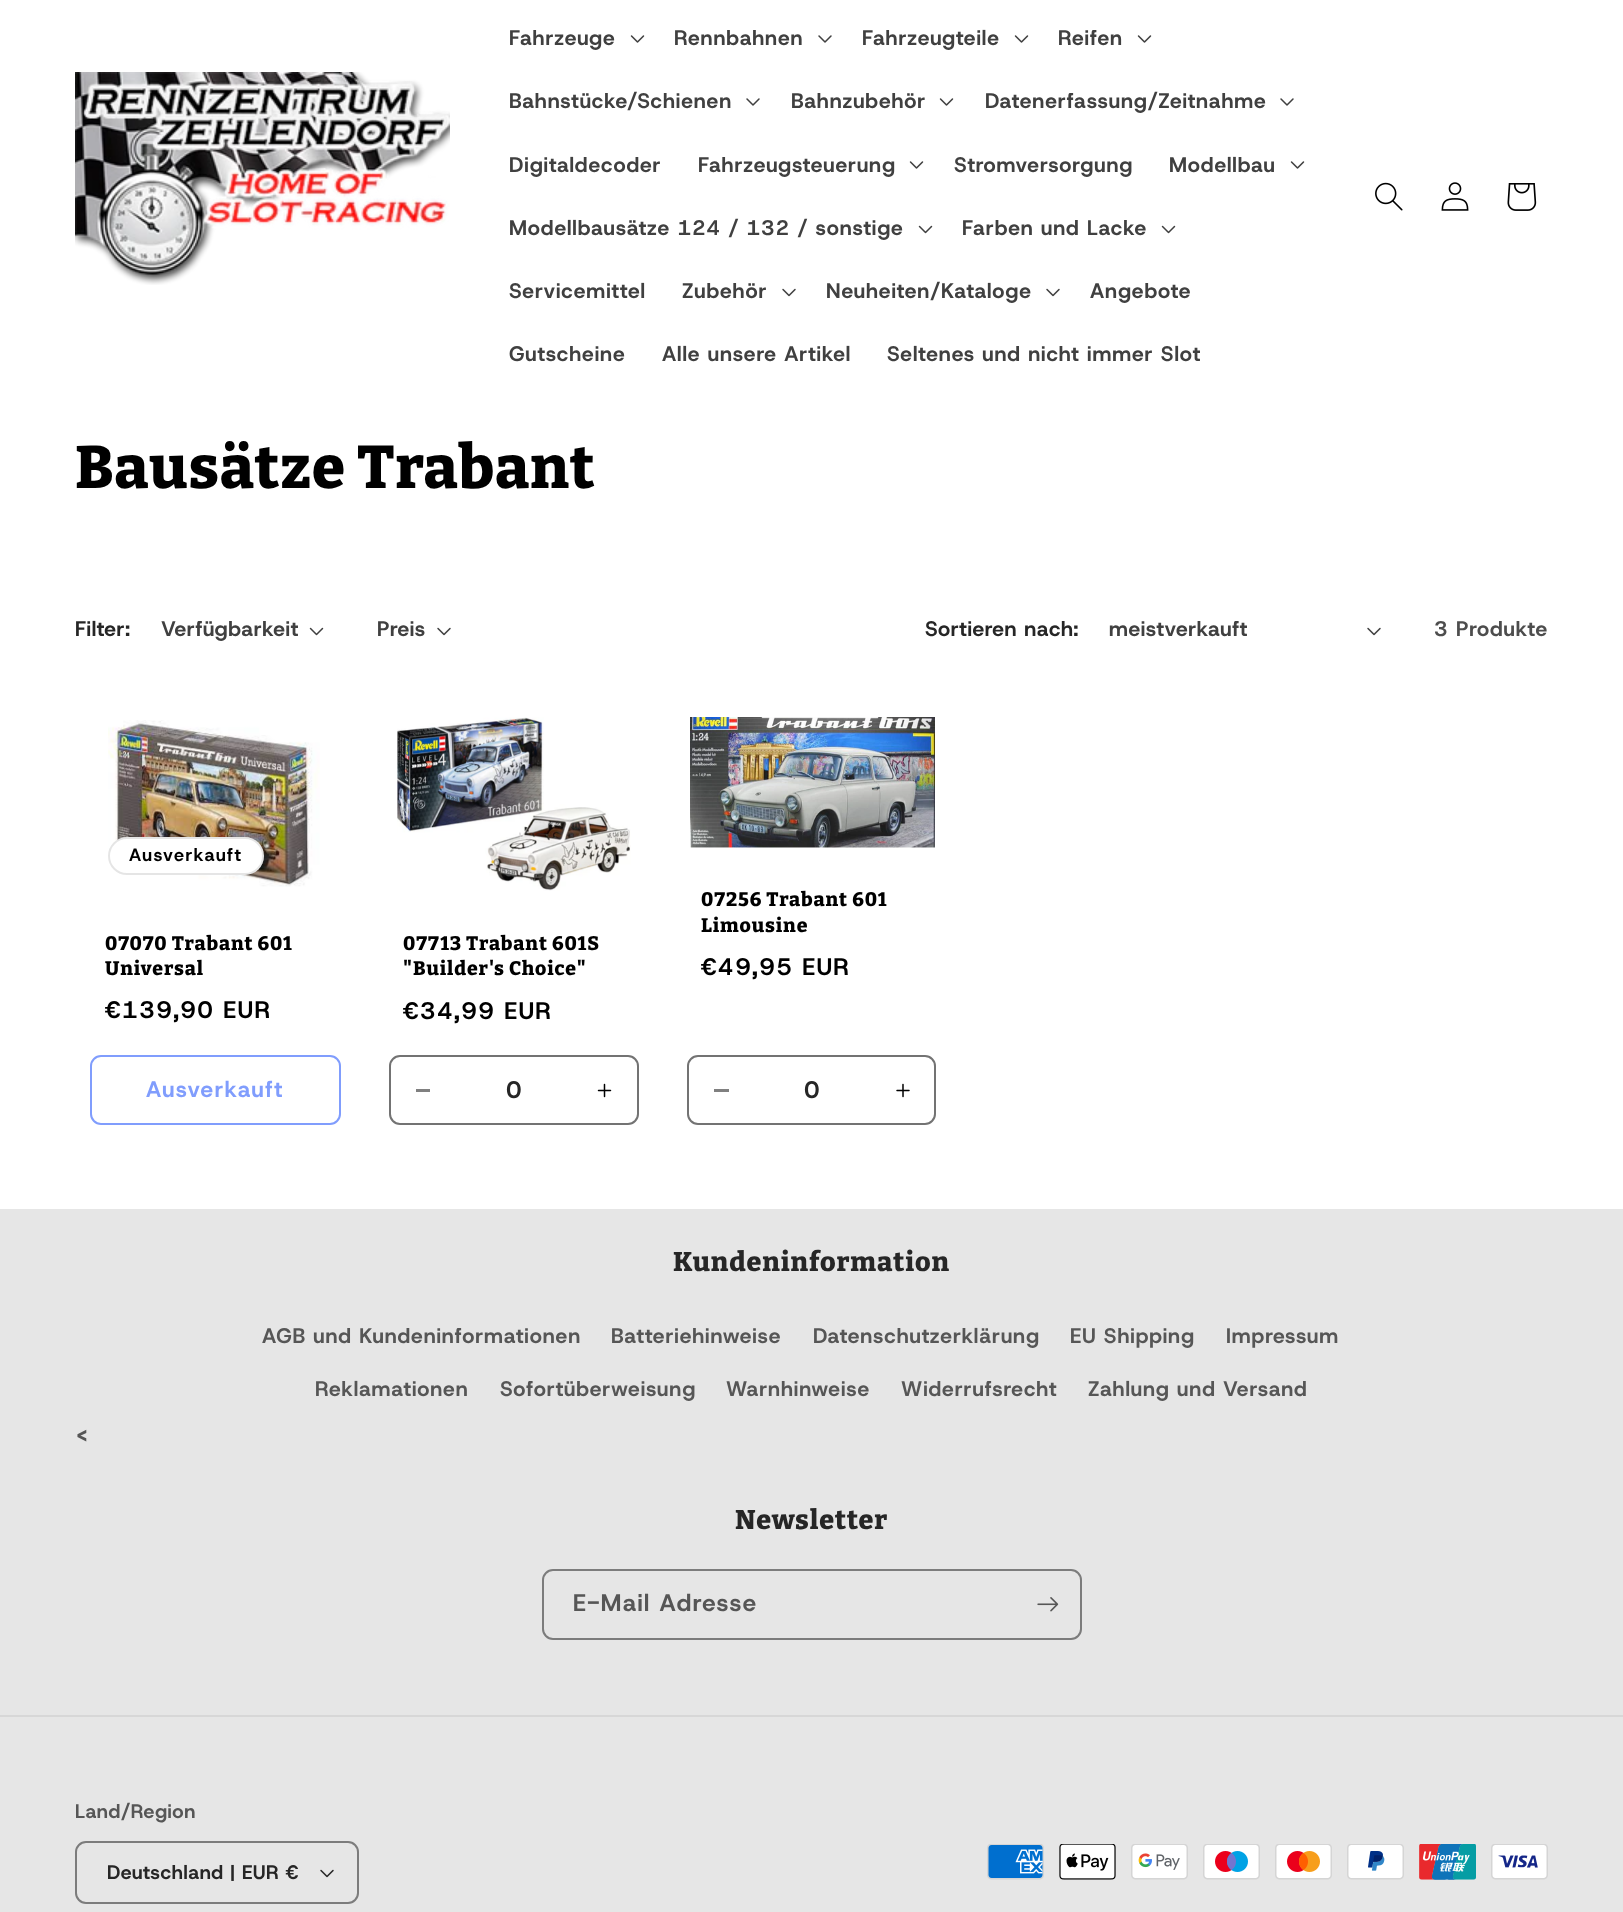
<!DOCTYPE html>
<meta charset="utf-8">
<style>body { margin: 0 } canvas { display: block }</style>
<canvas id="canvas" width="1623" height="1912"></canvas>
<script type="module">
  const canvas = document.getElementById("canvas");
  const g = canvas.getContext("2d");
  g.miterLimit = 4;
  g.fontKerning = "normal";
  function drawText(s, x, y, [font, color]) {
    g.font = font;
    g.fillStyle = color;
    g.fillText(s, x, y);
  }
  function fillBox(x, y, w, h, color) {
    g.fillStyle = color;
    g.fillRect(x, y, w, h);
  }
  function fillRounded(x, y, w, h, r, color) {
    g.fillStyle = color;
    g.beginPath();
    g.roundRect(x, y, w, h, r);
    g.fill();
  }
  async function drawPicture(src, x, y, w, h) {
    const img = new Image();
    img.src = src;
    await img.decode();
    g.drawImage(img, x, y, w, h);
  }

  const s1 = ["bold 21px Host Grotesk", "#404040"];
  const s2 = ["800 60px Bitter", "#000000"];
  const s3 = ["bold 21px Host Grotesk", "#262626"];
  const s4 = ["bold 21px Host Grotesk", "#4D4D4D"];
  const s5 = ["bold 18px Host Grotesk", "#000000"];
  const s6 = ["800 19.5px Bitter", "#000000"];
  const s7 = ["bold 24px Host Grotesk", "#000000"];
  const s8 = ["bold 22.5px Host Grotesk", "#809DFD"];
  const s9 = ["bold 24px Host Grotesk", "#262626"];
  const s10 = ["800 27px Bitter", "#262626"];
  const s11 = ["bold 21px Host Grotesk", "#565656"];
  const s12 = ["bold 24px Host Grotesk", "#565656"];
  const s13 = ["bold 19.5px Host Grotesk", "#565656"];
  const s14 = ["bold 19.5px Host Grotesk", "#262626"];

  fillBox(0, 0, 1623, 1912, "#FFFFFF");
  await drawPicture("pic1.png", 75, 72, 375, 213);
  g.letterSpacing = "0.9px";
  drawText("Fahrzeuge", 509, 45, s1);
  await drawPicture("pic2.png", 630, 35, 15, 8);
  drawText("Rennbahnen", 674, 45, s1);
  await drawPicture("pic3.png", 818, 35, 14, 8);
  drawText("Fahrzeugteile", 862, 45, s1);
  await drawPicture("pic2.png", 1014, 35, 15, 8);
  drawText("Reifen", 1058, 45, s1);
  await drawPicture("pic2.png", 1137, 35, 15, 8);
  drawText("Bahnstücke/Schienen", 509, 108, s1);
  await drawPicture("pic3.png", 746, 98, 14, 8);
  drawText("Bahnzubehör", 791, 108, s1);
  await drawPicture("pic2.png", 939, 98, 15, 8);
  drawText("Datenerfassung/Zeitnahme", 985, 108, s1);
  await drawPicture("pic3.png", 1280, 98, 14, 8);
  drawText("Digitaldecoder", 509, 172, s1);
  drawText("Fahrzeugsteuerung", 698, 172, s1);
  await drawPicture("pic2.png", 909, 161, 15, 8);
  drawText("Stromversorgung", 954, 172, s1);
  drawText("Modellbau", 1169, 172, s1);
  await drawPicture("pic2.png", 1290, 161, 15, 8);
  drawText("Modellbausätze 124 / 132 / sonstige", 509, 235, s1);
  await drawPicture("pic4.png", 918, 225, 15, 9);
  drawText("Farben und Lacke", 962, 235, s1);
  await drawPicture("pic4.png", 1161, 225, 15, 9);
  drawText("Servicemittel", 509, 298, s1);
  drawText("Zubehör", 682, 298, s1);
  await drawPicture("pic5.png", 782, 288, 14, 9);
  drawText("Neuheiten/Kataloge", 826, 298, s1);
  await drawPicture("pic5.png", 1046, 288, 14, 9);
  drawText("Angebote", 1090, 298, s1);
  drawText("Gutscheine", 509, 361, s1);
  drawText("Alle unsere Artikel", 662, 361, s1);
  drawText("Seltenes und nicht immer Slot", 887, 361, s1);
  await drawPicture("pic6.png", 1375, 182, 28, 29);
  await drawPicture("pic7.png", 1441, 182, 28, 29);
  await drawPicture("pic8.png", 1507, 183, 30, 28);
  drawText("Bausätze Trabant", 75, 488, s2);
  g.letterSpacing = "0.6px";
  drawText("Filter:", 75, 636, s3);
  drawText("Verfügbarkeit", 161, 636, s1);
  await drawPicture("pic4.png", 309, 627, 15, 9);
  drawText("Preis", 377, 636, s1);
  await drawPicture("pic5.png", 437, 627, 14, 9);
  drawText("Sortieren nach:", 925, 636, s3);
  drawText("meistverkauft", 1109, 636, s1);
  await drawPicture("pic5.png", 1367, 627, 14, 9);
  g.letterSpacing = "0.9px";
  drawText("3 Produkte", 1434, 636, s4);
  await drawPicture("pic9.png", 108, 720, 212, 167);
  fillRounded(108, 837, 156, 38, 19, "#FFFFFF");
  g.beginPath();
  g.roundRect(109, 838, 154, 36, 18);
  g.strokeStyle = "rgba(0, 0, 0, 0.1)";
  g.lineWidth = 2;
  g.stroke();
  g.letterSpacing = "1.5px";
  drawText("Ausverkauft", 129, 861, s5);
  g.letterSpacing = "0.9px";
  drawText("07070 Trabant 601", 105, 950, s6);
  drawText("Universal", 105, 975, s6);
  g.letterSpacing = "1.5px";
  drawText("€139,90 EUR", 105, 1018, s7);
  g.beginPath();
  g.roundRect(91, 1056, 249, 68, 10);
  g.strokeStyle = "#809DFD";
  g.stroke();
  drawText("Ausverkauft", 146, 1097, s8);
  await drawPicture("pic10.png", 397, 717, 234, 174);
  g.letterSpacing = "0.9px";
  drawText("07713 Trabant 601S", 403, 950, s6);
  drawText("\"Builder's Choice\"", 403, 975, s6);
  g.letterSpacing = "1.5px";
  drawText("€34,99 EUR", 403, 1019, s7);
  fillBox(416, 1089, 14, 3, "#808080");
  await drawPicture("pic11.png", 597, 1083, 15, 15);
  g.beginPath();
  g.roundRect(390, 1056, 248, 68, 10);
  g.strokeStyle = "#737373";
  g.stroke();
  g.letterSpacing = "0px";
  drawText("0", 506, 1098, s9);
  await drawPicture("pic12.png", 690, 717, 245, 131);
  g.letterSpacing = "0.9px";
  drawText("07256 Trabant 601", 701, 906, s6);
  drawText("Limousine", 701, 932, s6);
  g.letterSpacing = "1.5px";
  drawText("€49,95 EUR", 701, 975, s7);
  fillBox(714, 1089, 15, 3, "#808080");
  await drawPicture("pic13.png", 896, 1083, 14, 15);
  g.beginPath();
  g.roundRect(688, 1056, 247, 68, 10);
  g.stroke();
  g.letterSpacing = "0px";
  drawText("0", 804, 1098, s9);
  fillBox(0, 1209, 1623, 703, "#E6E6E6");
  g.letterSpacing = "0.9px";
  drawText("Kundeninformation", 673, 1271, s10);
  drawText("AGB und Kundeninformationen", 262, 1343, s11);
  drawText("Batteriehinweise", 611, 1343, s11);
  drawText("Datenschutzerklärung", 813, 1343, s11);
  drawText("EU Shipping", 1070, 1343, s11);
  drawText("Impressum", 1226, 1343, s11);
  drawText("Reklamationen", 315, 1396, s11);
  drawText("Sofortüberweisung", 500, 1396, s11);
  drawText("Warnhinweise", 726, 1396, s11);
  drawText("Widerrufsrecht", 901, 1396, s11);
  drawText("Zahlung und Versand", 1088, 1396, s11);
  drawText("<", 75, 1444, s12);
  drawText("Newsletter", 735, 1529, s10);
  g.beginPath();
  g.roundRect(543, 1570, 538, 69, 10);
  g.strokeStyle = "#7C7C7C";
  g.stroke();
  g.letterSpacing = "1.5px";
  drawText("E-Mail Adresse", 573, 1611, s12);
  await drawPicture("pic14.png", 1037, 1597, 22, 15);
  fillBox(0, 1715, 1623, 2, "#D7D7D7");
  g.letterSpacing = "0.6px";
  drawText("Land/Region", 75, 1818, s13);
  await drawPicture("pic15.png", 320, 1869, 14, 9);
  g.beginPath();
  g.roundRect(76, 1842, 282, 61, 10);
  g.stroke();
  drawText("Deutschland | EUR €", 107, 1879, s14);
  await drawPicture("pic16.png", 987, 1844, 57, 36);
  await drawPicture("pic17.png", 1059, 1844, 57, 36);
  await drawPicture("pic18.png", 1131, 1844, 57, 36);
  await drawPicture("pic19.png", 1203, 1844, 57, 36);
  await drawPicture("pic20.png", 1275, 1844, 57, 36);
  await drawPicture("pic21.png", 1347, 1844, 57, 36);
  await drawPicture("pic22.png", 1419, 1844, 57, 36);
  await drawPicture("pic23.png", 1491, 1844, 57, 36);
</script>
